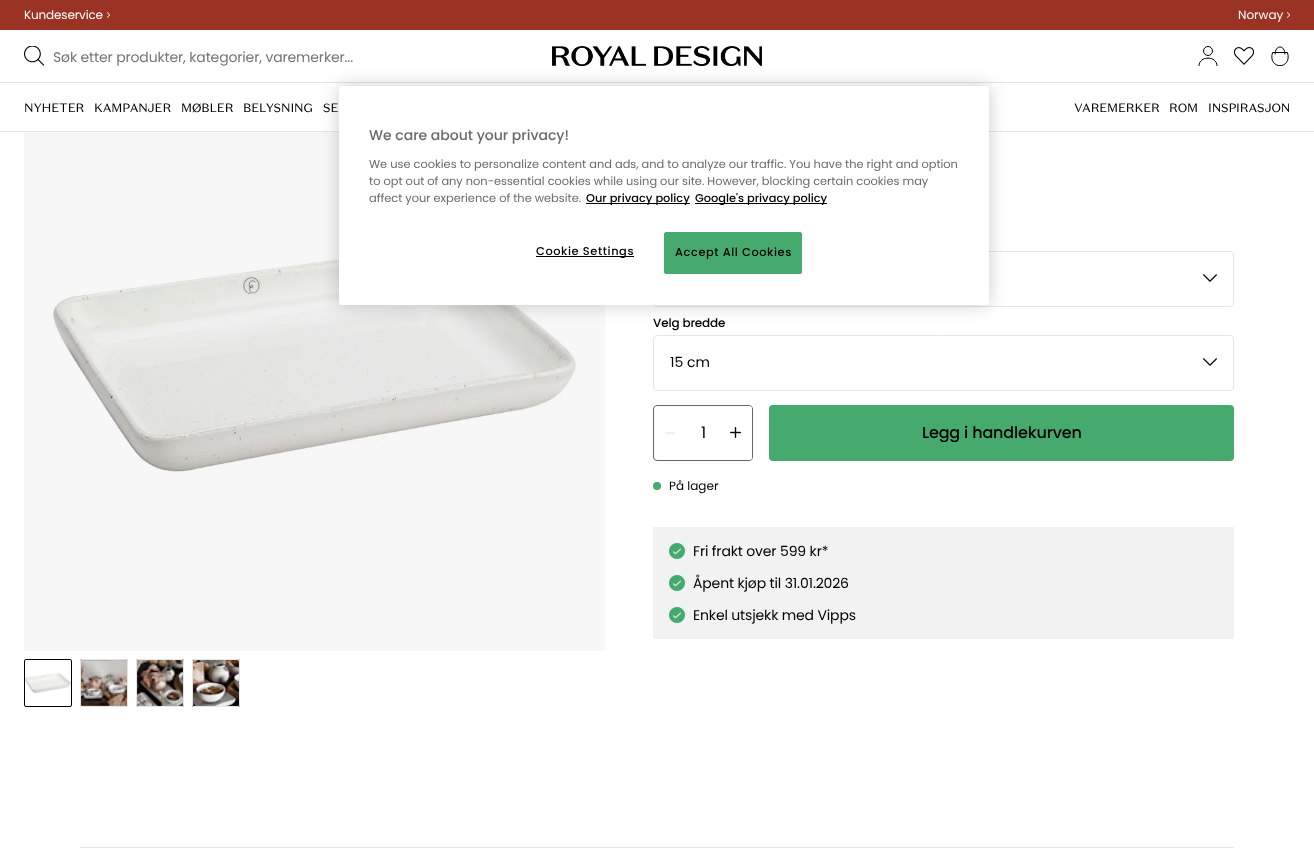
<!DOCTYPE html>
<meta charset="utf-8">
<style>body { margin: 0 } canvas { display: block }</style>
<canvas id="canvas" width="1314" height="860"></canvas>
<script type="module">
  const canvas = document.getElementById("canvas");
  const g = canvas.getContext("2d");
  g.miterLimit = 4;
  g.fontKerning = "normal";
  function drawText(s, x, y, [font, color]) {
    g.font = font;
    g.fillStyle = color;
    g.fillText(s, x, y);
  }
  function fillBox(x, y, w, h, color) {
    g.fillStyle = color;
    g.fillRect(x, y, w, h);
  }
  function fillRounded(x, y, w, h, r, color) {
    g.fillStyle = color;
    g.beginPath();
    g.roundRect(x, y, w, h, r);
    g.fill();
  }
  async function drawPicture(src, x, y, w, h) {
    const img = new Image();
    img.src = src;
    await img.decode();
    g.drawImage(img, x, y, w, h);
  }

  const s1 = ["12px Poppins", "#FFFFFF"];
  const s2 = ["14px Poppins", "#757575"];
  const s3 = ["12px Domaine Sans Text", "#000000"];
  const s4 = ["500 12px Poppins", "#000000"];
  const s5 = ["14px Poppins", "#000000"];
  const s6 = ["16px Poppins", "#000000"];
  const s7 = ["500 16px Poppins", "#000000"];
  const s8 = ["12px Poppins", "#000000"];
  const s9 = ["500 14px Poppins", "#696969"];
  const s10 = ["11.38px Poppins", "#696969"];
  const s11 = ["500 11.38px Poppins", "#000000"];

  fillBox(0, 0, 1314, 860, "#FFFFFF");
  fillBox(0, 0, 1314, 30, "#9A3324");
  g.letterSpacing = "-0.15px";
  drawText("Kundeservice", 24, 19, s1);
  await drawPicture("pic1.png", 107, 12, 3, 6);
  g.letterSpacing = "0px";
  drawText("Norway", 1238, 19, s1);
  await drawPicture("pic1.png", 1287, 12, 3, 6);
  await drawPicture("pic2.png", 24, 46, 20, 20);
  g.letterSpacing = "-0.15px";
  drawText("Søk etter produkter, kategorier, varemerker...", 53, 62, s2);
  await drawPicture("pic3.png", 552, 46, 210, 20);
  g.beginPath();
  g.moveTo(1199, 66);
  g.bezierCurveTo(1199, 55.5, 1217, 55.5, 1217, 66);
  g.strokeStyle = "#000000";
  g.stroke();
  g.beginPath();
  g.arc(1208, 51, 4.5, 0, Math.PI * 2);
  g.stroke();
  await drawPicture("pic4.png", 1234, 47, 20, 18);
  g.beginPath();
  g.moveTo(1272.5, 52.5);
  g.bezierCurveTo(1267.5, 70, 1292.5, 70, 1287.5, 52.5);
  g.closePath();
  g.lineJoin = "round";
  g.stroke();
  g.beginPath();
  g.moveTo(1275, 54.5);
  g.bezierCurveTo(1275, 44.5, 1285, 44.5, 1285, 54.5);
  g.lineJoin = "miter";
  g.stroke();
  fillBox(0, 82, 1314, 1, "#E5E5E5");
  fillBox(0, 131, 1314, 1, "#E5E5E5");
  drawText("NYHETER", 24, 112, s3);
  drawText("KAMPANJER", 94, 112, s3);
  drawText("MØBLER", 181, 112, s3);
  drawText("BELYSNING", 243, 112, s3);
  drawText("SE", 323, 112, s3);
  drawText("VAREMERKER", 1074, 112, s3);
  drawText("ROM", 1169, 112, s3);
  drawText("INSPIRASJON", 1208, 112, s3);
  await drawPicture("pic5.png", 53, 249, 523, 224);
  fillBox(24, 132, 581, 519, "rgba(0, 0, 0, 0.03)");
  await drawPicture("pic6.png", 25, 673, 46, 21);
  g.beginPath();
  g.roundRect(24.5, 659.5, 47, 47, 1.5);
  g.stroke();
  await drawPicture("pic7.png", 80, 659, 48, 48);
  g.beginPath();
  g.roundRect(80.5, 659.5, 47, 47, 1.5);
  g.strokeStyle = "#E5E5E5";
  g.stroke();
  await drawPicture("pic8.png", 136, 659, 48, 48);
  g.beginPath();
  g.roundRect(136.5, 659.5, 47, 47, 1.5);
  g.stroke();
  await drawPicture("pic9.png", 192, 659, 48, 48);
  g.beginPath();
  g.roundRect(192.5, 659.5, 47, 47, 1.5);
  g.stroke();
  g.beginPath();
  g.roundRect(653.5, 251.5, 580, 55, 3.5);
  g.stroke();
  await drawPicture("pic10.png", 1203, 274, 14, 8);
  drawText("Velg bredde", 653, 327, s4);
  g.beginPath();
  g.roundRect(653.5, 335.5, 580, 55, 3.5);
  g.stroke();
  g.letterSpacing = "0px";
  drawText("15 cm", 670, 367, s5);
  await drawPicture("pic10.png", 1203, 358, 14, 8);
  g.beginPath();
  g.roundRect(653.5, 405.5, 99, 55, 3.5);
  g.strokeStyle = "#666666";
  g.stroke();
  g.fillStyle = "rgba(255, 255, 255, 0.1)";
  g.beginPath();
  g.roundRect(654, 406, 33, 54, [3, 0, 0, 3]);
  g.fill();
  fillBox(665, 432, 10, 2, "#F0F0F0");
  g.letterSpacing = "-0.15px";
  drawText("1", 701, 438, s6);
  g.fillStyle = "#FFFFFF";
  g.beginPath();
  g.roundRect(719, 406, 33, 54, [0, 3, 3, 0]);
  g.fill();
  await drawPicture("pic11.png", 730, 427, 11, 11);
  fillRounded(769, 405, 465, 56, 4, "#46AA6E");
  g.save();
  g.beginPath();
  g.rect(922, 423, 159, 19);
  g.clip();
  drawText("Legg i handlekurven", 922, 438, s7);
  g.restore();
  g.beginPath();
  g.arc(657, 486, 4, 0, Math.PI * 2);
  g.fill();
  g.letterSpacing = "0px";
  drawText("På lager", 669, 490, s8);
  fillBox(653, 527, 581, 112, "#F2F2F2");
  await drawPicture("pic12.png", 669, 543, 16, 16);
  g.letterSpacing = "-0.15px";
  drawText("Fri frakt over 599 kr*", 693, 556, s5);
  await drawPicture("pic12.png", 669, 575, 16, 16);
  drawText("Åpent kjøp til 31.01.2026", 693, 588, s5);
  await drawPicture("pic12.png", 669, 607, 16, 16);
  drawText("Enkel utsjekk med Vipps", 693, 620, s5);
  fillBox(80, 847, 1154, 1, "#E5E5E5");
  g.fillStyle = "rgba(0, 0, 0, 0.2)";
  g.filter = "blur(9px)";
  g.beginPath();
  g.roundRect(339, 86, 650, 219, 2.5);
  g.fill();
  g.filter = "none";
  fillRounded(339, 86, 650, 219, 2.5, "#FFFFFF");
  g.letterSpacing = "0px";
  drawText("We care about your privacy!", 369, 140, s9);
  drawText("We use cookies to personalize content and ads, and to analyze our traffic. You have the right and option", 369, 168, s10);
  drawText("to opt out of any non-essential cookies while using our site. However, blocking certain cookies may", 369, 185, s10);
  drawText("affect your experience of the website.", 369, 202, s10);
  fillBox(586, 203, 104, 1, "#000000");
  drawText("Our privacy policy", 586, 202, s11);
  fillBox(695, 203, 132, 1, "#000000");
  drawText("Google's privacy policy", 695, 202, s11);
  fillBox(536, 256, 98, 1, "#000000");
  g.letterSpacing = "0.6px";
  drawText("Cookie Settings", 536, 255, s11);
  g.fillStyle = "#46AA6E";
  g.beginPath();
  g.roundRect(664.5, 232.5, 137, 41, 1.5);
  g.fill();
  g.strokeStyle = "#46AA6E";
  g.stroke();
  drawText("Accept All Cookies", 675, 256, s11);
</script>
